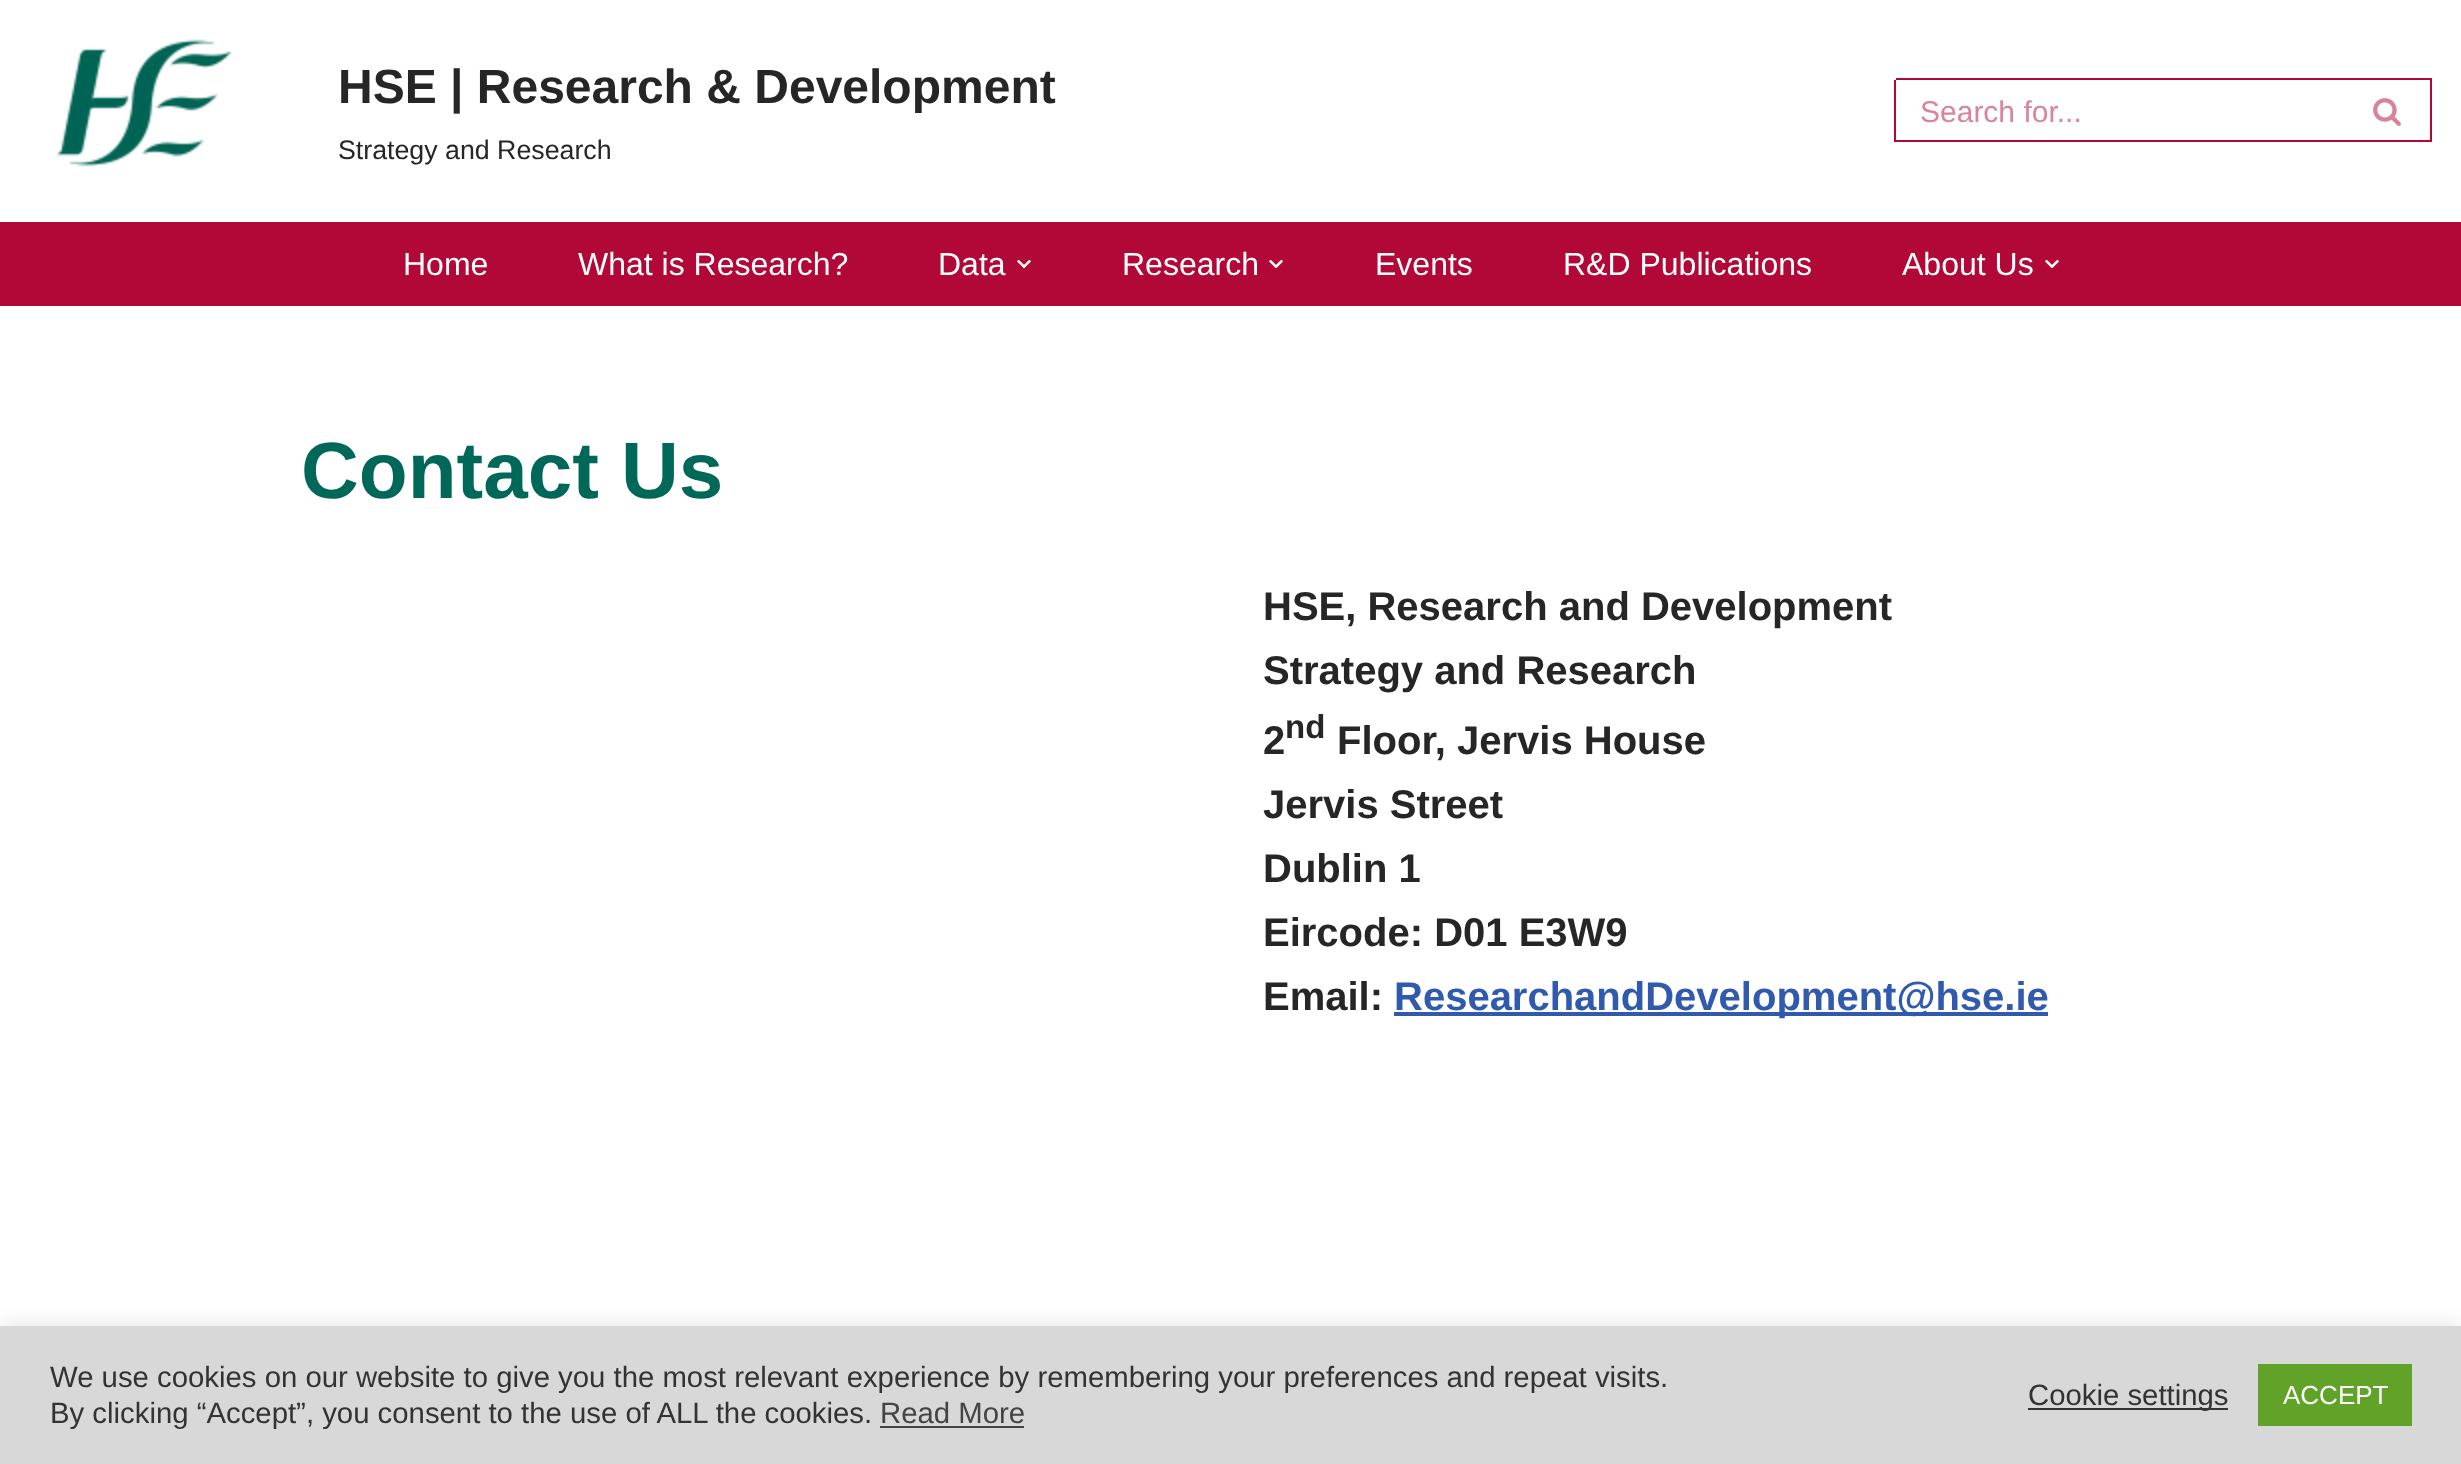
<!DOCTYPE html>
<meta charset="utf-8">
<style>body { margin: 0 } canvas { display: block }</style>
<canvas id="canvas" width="2461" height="1464"></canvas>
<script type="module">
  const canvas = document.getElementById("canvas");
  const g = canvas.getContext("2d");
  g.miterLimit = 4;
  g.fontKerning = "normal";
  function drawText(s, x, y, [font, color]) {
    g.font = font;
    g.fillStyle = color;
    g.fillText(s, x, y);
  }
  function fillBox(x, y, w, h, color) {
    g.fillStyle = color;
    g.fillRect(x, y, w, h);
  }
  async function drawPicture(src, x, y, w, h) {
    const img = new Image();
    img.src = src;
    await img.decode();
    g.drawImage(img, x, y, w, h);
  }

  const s1 = ["bold 48px Liberation Sans", "#272626"];
  const s2 = ["26.75px Liberation Sans", "#272626"];
  const s3 = ["30px Liberation Sans", "#D9849C"];
  const s4 = ["32px Liberation Sans", "#FFFFFF"];
  const s5 = ["bold 80px Liberation Sans", "#006858"];
  const s6 = ["bold 40px Liberation Sans", "#272626"];
  const s7 = ["bold 33px Liberation Sans", "#272626"];
  const s8 = ["bold 40px Liberation Sans", "#2F5AAE"];
  const s9 = ["29.33px Liberation Sans", "#333333"];
  const s10 = ["29.33px Liberation Sans", "#444444"];
  const s11 = ["26px Liberation Sans", "#FFFFFF"];

  fillBox(0, 0, 2461, 1464, "#FFFFFF");
  await drawPicture("pic1.png", 56, 39, 177, 128);
  drawText("HSE | Research & Development", 338, 103, s1);
  drawText("Strategy and Research", 338, 159, s2);
  fillBox(1896, 78, 536, 2, "#B20838");
  fillBox(1896, 140, 446, 2, "#B20838");
  fillBox(1894, 80, 2, 62, "#B20838");
  drawText("Search for...", 1920, 122, s3);
  fillBox(2430, 80, 2, 62, "#B20838");
  fillBox(2342, 140, 90, 2, "#B20838");
  await drawPicture("pic2.png", 2373, 98, 28, 28);
  fillBox(0, 222, 2461, 84, "#B20838");
  drawText("Home", 403, 275, s4);
  drawText("What is Research?", 578, 275, s4);
  drawText("Data", 938, 275, s4);
  await drawPicture("pic3.png", 1017, 259, 14, 10);
  drawText("Research", 1122, 275, s4);
  await drawPicture("pic3.png", 1269, 259, 14, 10);
  drawText("Events", 1375, 275, s4);
  drawText("R&D Publications", 1563, 275, s4);
  drawText("About Us", 1902, 275, s4);
  await drawPicture("pic3.png", 2045, 259, 14, 10);
  drawText("Contact Us", 301, 498, s5);
  drawText("HSE, Research and Development", 1263, 620, s6);
  drawText("Strategy and Research", 1263, 684, s6);
  drawText("2", 1263, 754, s6);
  drawText("nd", 1285, 738, s7);
  drawText("Floor, Jervis House", 1337, 754, s6);
  drawText("Jervis Street", 1263, 818, s6);
  drawText("Dublin 1", 1263, 882, s6);
  drawText("Eircode: D01 E3W9", 1263, 946, s6);
  drawText("Email:", 1263, 1010, s6);
  fillBox(1394, 1012, 654, 4, "#2F5AAE");
  drawText("ResearchandDevelopment@hse.ie", 1394, 1010, s8);
  g.fillStyle = "rgba(172, 171, 171, 0.3)";
  g.filter = "blur(10px)";
  g.beginPath();
  g.rect(0, 1324, 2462, 138);
  g.fill();
  g.filter = "none";
  fillBox(0, 1326, 2461, 138, "#D8D8D8");
  drawText("We use cookies on our website to give you the most relevant experience by remembering your preferences and repeat visits.", 50, 1387, s9);
  drawText("By clicking “Accept”, you consent to the use of ALL the cookies.", 50, 1423, s9);
  drawText("Read More", 880, 1423, s10);
  fillBox(880, 1426, 144, 2, "#444444");
  fillBox(2028, 1408, 200, 2, "#333333");
  drawText("Cookie settings", 2028, 1405, s9);
  fillBox(2258, 1364, 154, 62, "#61A229");
  drawText("ACCEPT", 2283, 1404, s11);
</script>
